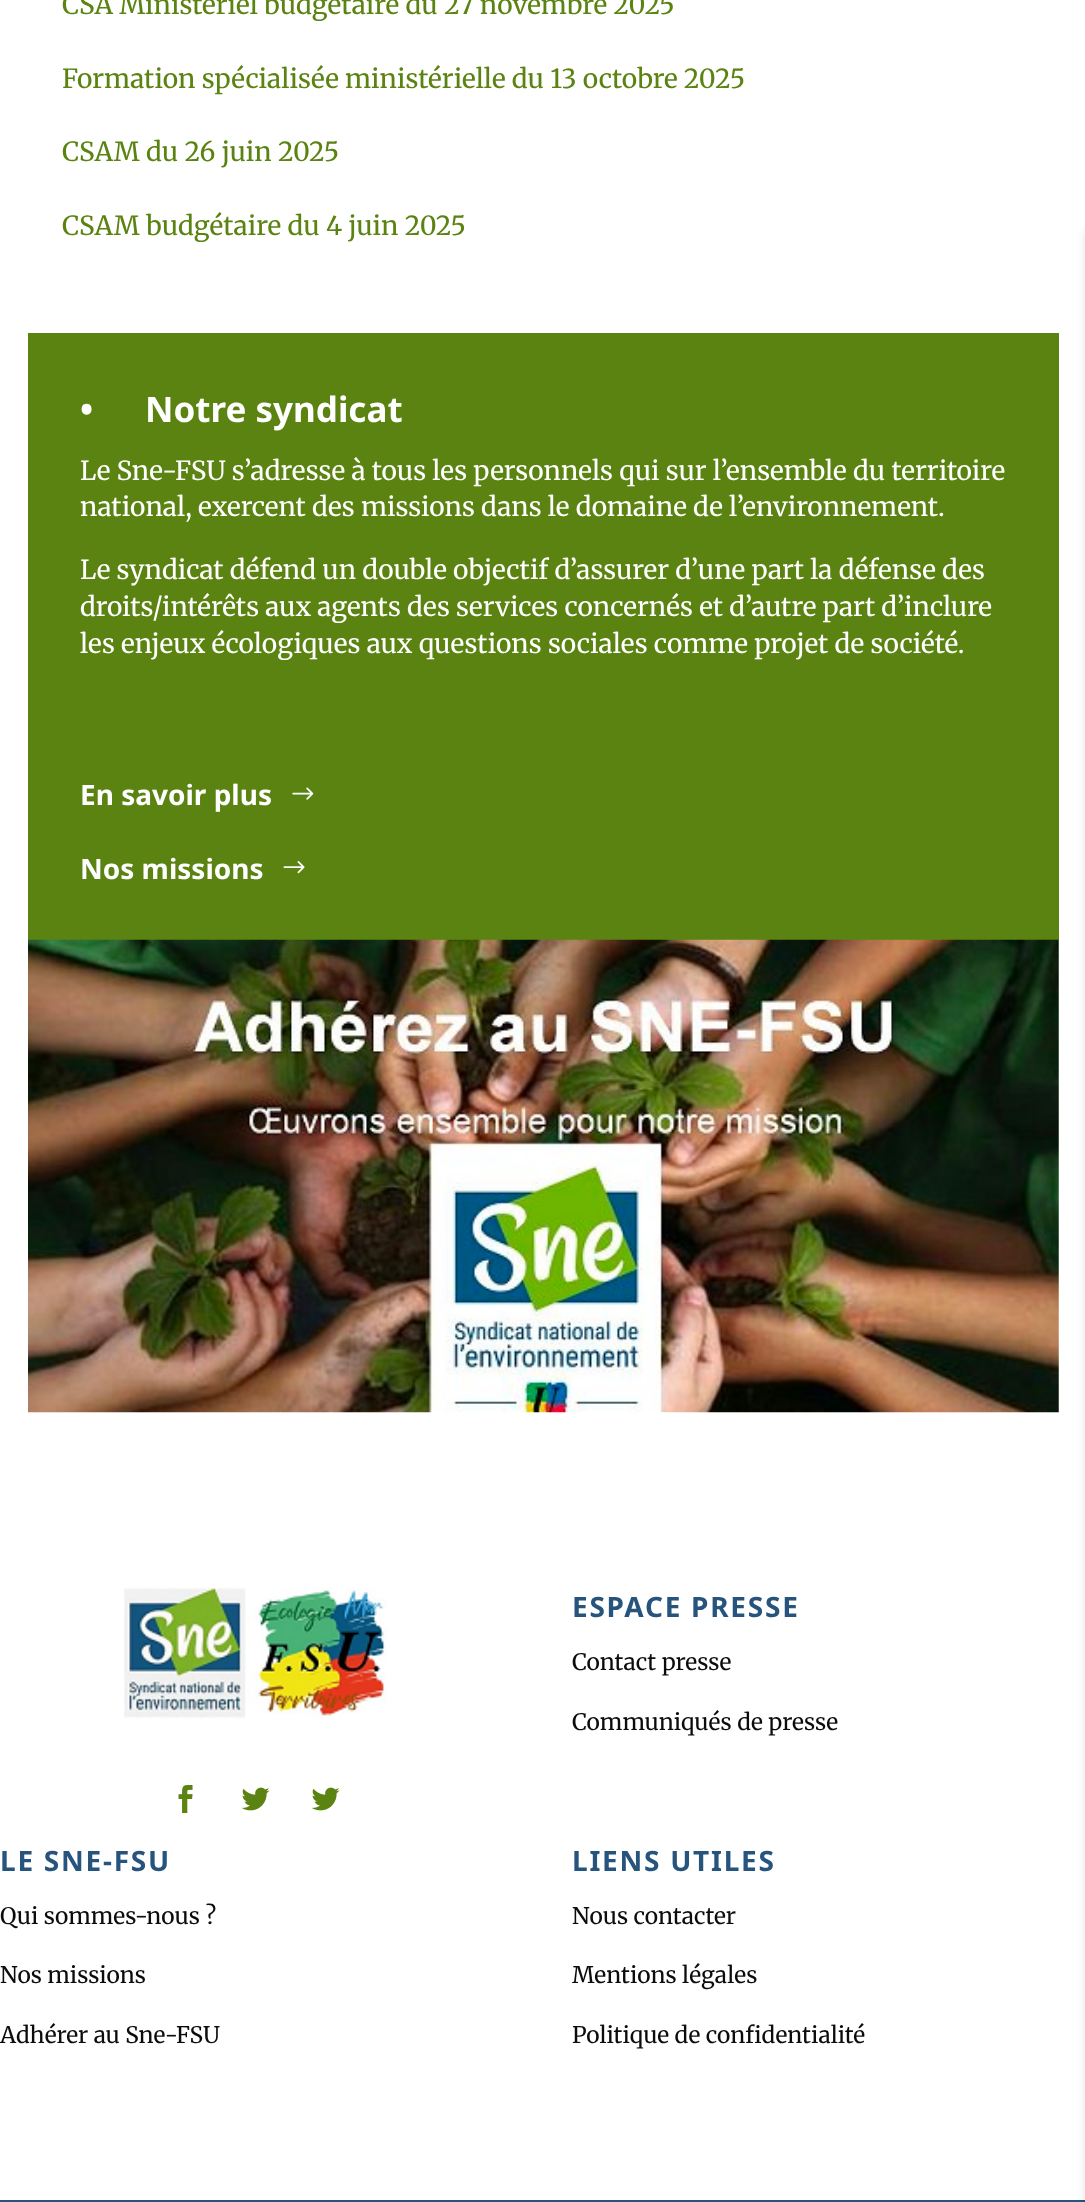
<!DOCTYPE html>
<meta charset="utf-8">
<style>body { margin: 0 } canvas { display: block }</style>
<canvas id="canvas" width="1085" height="2202"></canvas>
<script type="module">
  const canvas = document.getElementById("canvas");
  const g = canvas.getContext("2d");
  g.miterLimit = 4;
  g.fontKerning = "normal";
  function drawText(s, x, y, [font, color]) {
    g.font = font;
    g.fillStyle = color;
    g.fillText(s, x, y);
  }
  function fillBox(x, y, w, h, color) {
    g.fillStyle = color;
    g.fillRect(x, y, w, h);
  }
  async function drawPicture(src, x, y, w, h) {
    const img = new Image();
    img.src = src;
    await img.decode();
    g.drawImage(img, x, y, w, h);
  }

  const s1 = ["26.25px Merriweather", "#5B8311"];
  const s2 = ["bold 35px Noto Sans", "#FFFFFF"];
  const s3 = ["26.25px Merriweather", "#FFFFFF"];
  const s4 = ["bold 28px Noto Sans", "#FFFFFF"];
  const s5 = ["bold 28px Noto Sans", "#26547C"];
  const s6 = ["22.75px Merriweather", "#0C0C0C"];

  fillBox(0, 0, 1085, 2202, "#FFFFFF");
  drawText("CSA Ministériel budgétaire du 27 novembre 2025", 62, 14, s1);
  drawText("Formation spécialisée ministérielle du 13 octobre 2025", 62, 88, s1);
  drawText("CSAM du 26 juin 2025", 62, 161, s1);
  drawText("CSAM budgétaire du 4 juin 2025", 62, 235, s1);
  fillBox(28, 333, 1031, 607, "#5B8311");
  drawText("•", 80, 422, s2);
  drawText("Notre syndicat", 145, 422, s2);
  drawText("Le Sne-FSU s’adresse à tous les personnels qui sur l’ensemble du territoire", 80, 480, s3);
  drawText("national, exercent des missions dans le domaine de l’environnement.", 80, 516, s3);
  drawText("Le syndicat défend un double objectif d’assurer d’une part la défense des", 80, 579, s3);
  drawText("droits/intérêts aux agents des services concernés et d’autre part d’inclure", 80, 616, s3);
  drawText("les enjeux écologiques aux questions sociales comme projet de société.", 80, 653, s3);
  drawText("En savoir plus", 80, 805, s4);
  await drawPicture("pic1.png", 292, 787, 22, 13);
  drawText("Nos missions", 80, 879, s4);
  await drawPicture("pic2.png", 283, 861, 22, 13);
  await drawPicture("pic3.png", 28, 939, 1031, 474);
  await drawPicture("pic4.png", 124, 1587, 263, 132);
  await drawPicture("pic5.png", 178, 1785, 15, 28);
  await drawPicture("pic6.png", 241, 1787, 29, 24);
  await drawPicture("pic6.png", 311, 1787, 29, 24);
  g.letterSpacing = "1.75px";
  drawText("ESPACE PRESSE", 572, 1617, s5);
  g.letterSpacing = "0px";
  drawText("Contact presse", 572, 1670, s6);
  drawText("Communiqués de presse", 572, 1730, s6);
  g.letterSpacing = "1.75px";
  drawText("LE SNE-FSU", 0, 1871, s5);
  g.letterSpacing = "0px";
  drawText("Qui sommes-nous ?", 0, 1924, s6);
  drawText("Nos missions", 0, 1983, s6);
  drawText("Adhérer au Sne-FSU", 0, 2043, s6);
  g.letterSpacing = "1.75px";
  drawText("LIENS UTILES", 572, 1871, s5);
  g.letterSpacing = "0px";
  drawText("Nous contacter", 572, 1924, s6);
  drawText("Mentions légales", 572, 1983, s6);
  drawText("Politique de confidentialité", 572, 2043, s6);
  fillBox(0, 2200, 1085, 2, "#26547C");
  g.fillStyle = "rgba(0, 0, 0, 0.1)";
  g.filter = "blur(4.5px)";
  g.beginPath();
  g.rect(1085, 231, 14, 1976);
  g.fill();
  g.filter = "none";
</script>
